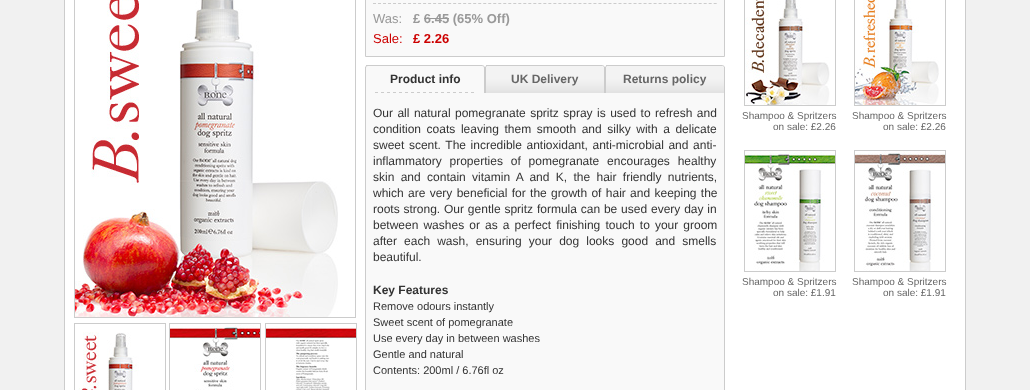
<!DOCTYPE html>
<meta charset="utf-8">
<style>body { margin: 0 } canvas { display: block }</style>
<canvas id="canvas" width="1030" height="390"></canvas>
<script type="module">
  const canvas = document.getElementById("canvas");
  const g = canvas.getContext("2d");
  g.miterLimit = 4;
  g.fontKerning = "normal";
  function drawText(s, x, y, [font, color]) {
    g.font = font;
    g.fillStyle = color;
    g.fillText(s, x, y);
  }
  function fillBox(x, y, w, h, color) {
    g.fillStyle = color;
    g.fillRect(x, y, w, h);
  }
  async function drawPicture(src, x, y, w, h) {
    const img = new Image();
    img.src = src;
    await img.decode();
    g.drawImage(img, x, y, w, h);
  }

  const s1 = ["13px Liberation Sans", "#999999"];
  const s2 = ["bold 13px Liberation Sans", "#999999"];
  const s3 = ["13px Liberation Sans", "#CC0000"];
  const s4 = ["bold 13px Liberation Sans", "#CC0000"];
  const s5 = ["bold 12px Liberation Sans", "#333333"];
  const s6 = ["bold 12px Liberation Sans", "#666666"];
  const s7 = ["12px Liberation Sans", "#333333"];
  const s8 = ["11px Liberation Sans", "#333333"];
  const s9 = ["10px Liberation Sans", "#666666"];

  fillBox(0, 0, 1030, 390, "#F1F1F1");
  fillBox(65, 0, 900, 390, "#FFFFFF");
  fillBox(965, 0, 1, 390, "#CCCCCC");
  fillBox(64, 0, 1, 390, "#CCCCCC");
  g.strokeStyle = "#CCCCCC";
  g.strokeRect(74.5, -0.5, 281, 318);
  await drawPicture("pic1.png", 75, 0, 263, 317);
  g.strokeRect(74.5, 323.5, 91, 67);
  await drawPicture("pic2.png", 78, 332, 61, 58);
  g.strokeRect(169.5, 323.5, 91, 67);
  await drawPicture("pic3.png", 170, 324, 90, 66);
  g.strokeRect(265.5, 323.5, 91, 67);
  await drawPicture("pic4.png", 266, 326, 90, 64);
  g.fillStyle = "#F9F9F9";
  g.beginPath();
  g.rect(365.5, -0.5, 359, 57);
  g.fill();
  g.stroke();
  g.beginPath();
  g.moveTo(373, 3.5);
  g.lineTo(717, 3.5);
  g.setLineDash([3, 2.01]);
  g.stroke();
  drawText("Was:", 373, 23, s1);
  drawText("£ 6.45 (65% Off)", 413, 23, s2);
  fillBox(424, 18, 25, 1, "#999999");
  drawText("Sale:", 373, 43, s3);
  drawText("£ 2.26", 413, 43, s4);
  await drawPicture("pic5.png", 365, 65, 120, 28);
  drawText("Product info", 390, 83, s5);
  await drawPicture("pic6.png", 485, 65, 120, 28);
  drawText("UK Delivery", 511, 83, s6);
  await drawPicture("pic6.png", 605, 65, 120, 28);
  drawText("Returns policy", 623, 83, s6);
  fillBox(366, 93, 358, 297, "#F9F9F9");
  fillBox(724, 93, 1, 297, "#CCCCCC");
  fillBox(365, 93, 1, 297, "#CCCCCC");
  g.wordSpacing = "1.1px";
  drawText("Our all natural pomegranate spritz spray is used to refresh and", 373, 117, s7);
  g.wordSpacing = "2.25px";
  drawText("condition coats leaving them smooth and silky with a delicate", 373, 133, s7);
  g.wordSpacing = "1.25px";
  drawText("sweet scent. The incredible antioxidant, anti-microbial and anti-", 373, 149, s7);
  g.wordSpacing = "4.5px";
  drawText("inflammatory properties of pomegranate encourages healthy", 373, 165, s7);
  g.wordSpacing = "3px";
  drawText("skin and contain vitamin A and K, the hair friendly nutrients,", 373, 181, s7);
  g.wordSpacing = "1px";
  drawText("which are very beneficial for the growth of hair and keeping the", 373, 197, s7);
  g.wordSpacing = "0.5px";
  drawText("roots strong. Our gentle spritz formula can be used every day in", 373, 213, s7);
  g.wordSpacing = "1.75px";
  drawText("between washes or as a perfect finishing touch to your groom", 373, 229, s7);
  g.wordSpacing = "3.75px";
  drawText("after each wash, ensuring your dog looks good and smells", 373, 245, s7);
  g.wordSpacing = "0px";
  drawText("beautiful.", 373, 261, s7);
  drawText("Key Features", 373, 294, s5);
  drawText("Remove odours instantly", 373, 310, s8);
  drawText("Sweet scent of pomegranate", 373, 326, s8);
  drawText("Use every day in between washes", 373, 342, s8);
  drawText("Gentle and natural", 373, 358, s8);
  drawText("Contents: 200ml / 6.76fl oz", 373, 374, s8);
  g.setLineDash([]);
  g.strokeRect(744.5, -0.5, 91, 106);
  await drawPicture("pic7.png", 745, 0, 85, 105);
  drawText("Shampoo & Spritzers", 742, 119, s9);
  drawText("on sale: £2.26", 773, 130, s9);
  g.strokeRect(854.5, -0.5, 91, 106);
  await drawPicture("pic8.png", 855, 0, 84, 105);
  drawText("Shampoo & Spritzers", 852, 119, s9);
  drawText("on sale: £2.26", 883, 130, s9);
  g.strokeRect(744.5, 150.5, 91, 121);
  await drawPicture("pic9.png", 745, 151, 90, 120);
  drawText("Shampoo & Spritzers", 742, 285, s9);
  drawText("on sale: £1.91", 773, 296, s9);
  g.strokeRect(854.5, 150.5, 91, 121);
  await drawPicture("pic10.png", 855, 151, 90, 120);
  drawText("Shampoo & Spritzers", 852, 285, s9);
  drawText("on sale: £1.91", 883, 296, s9);
</script>
